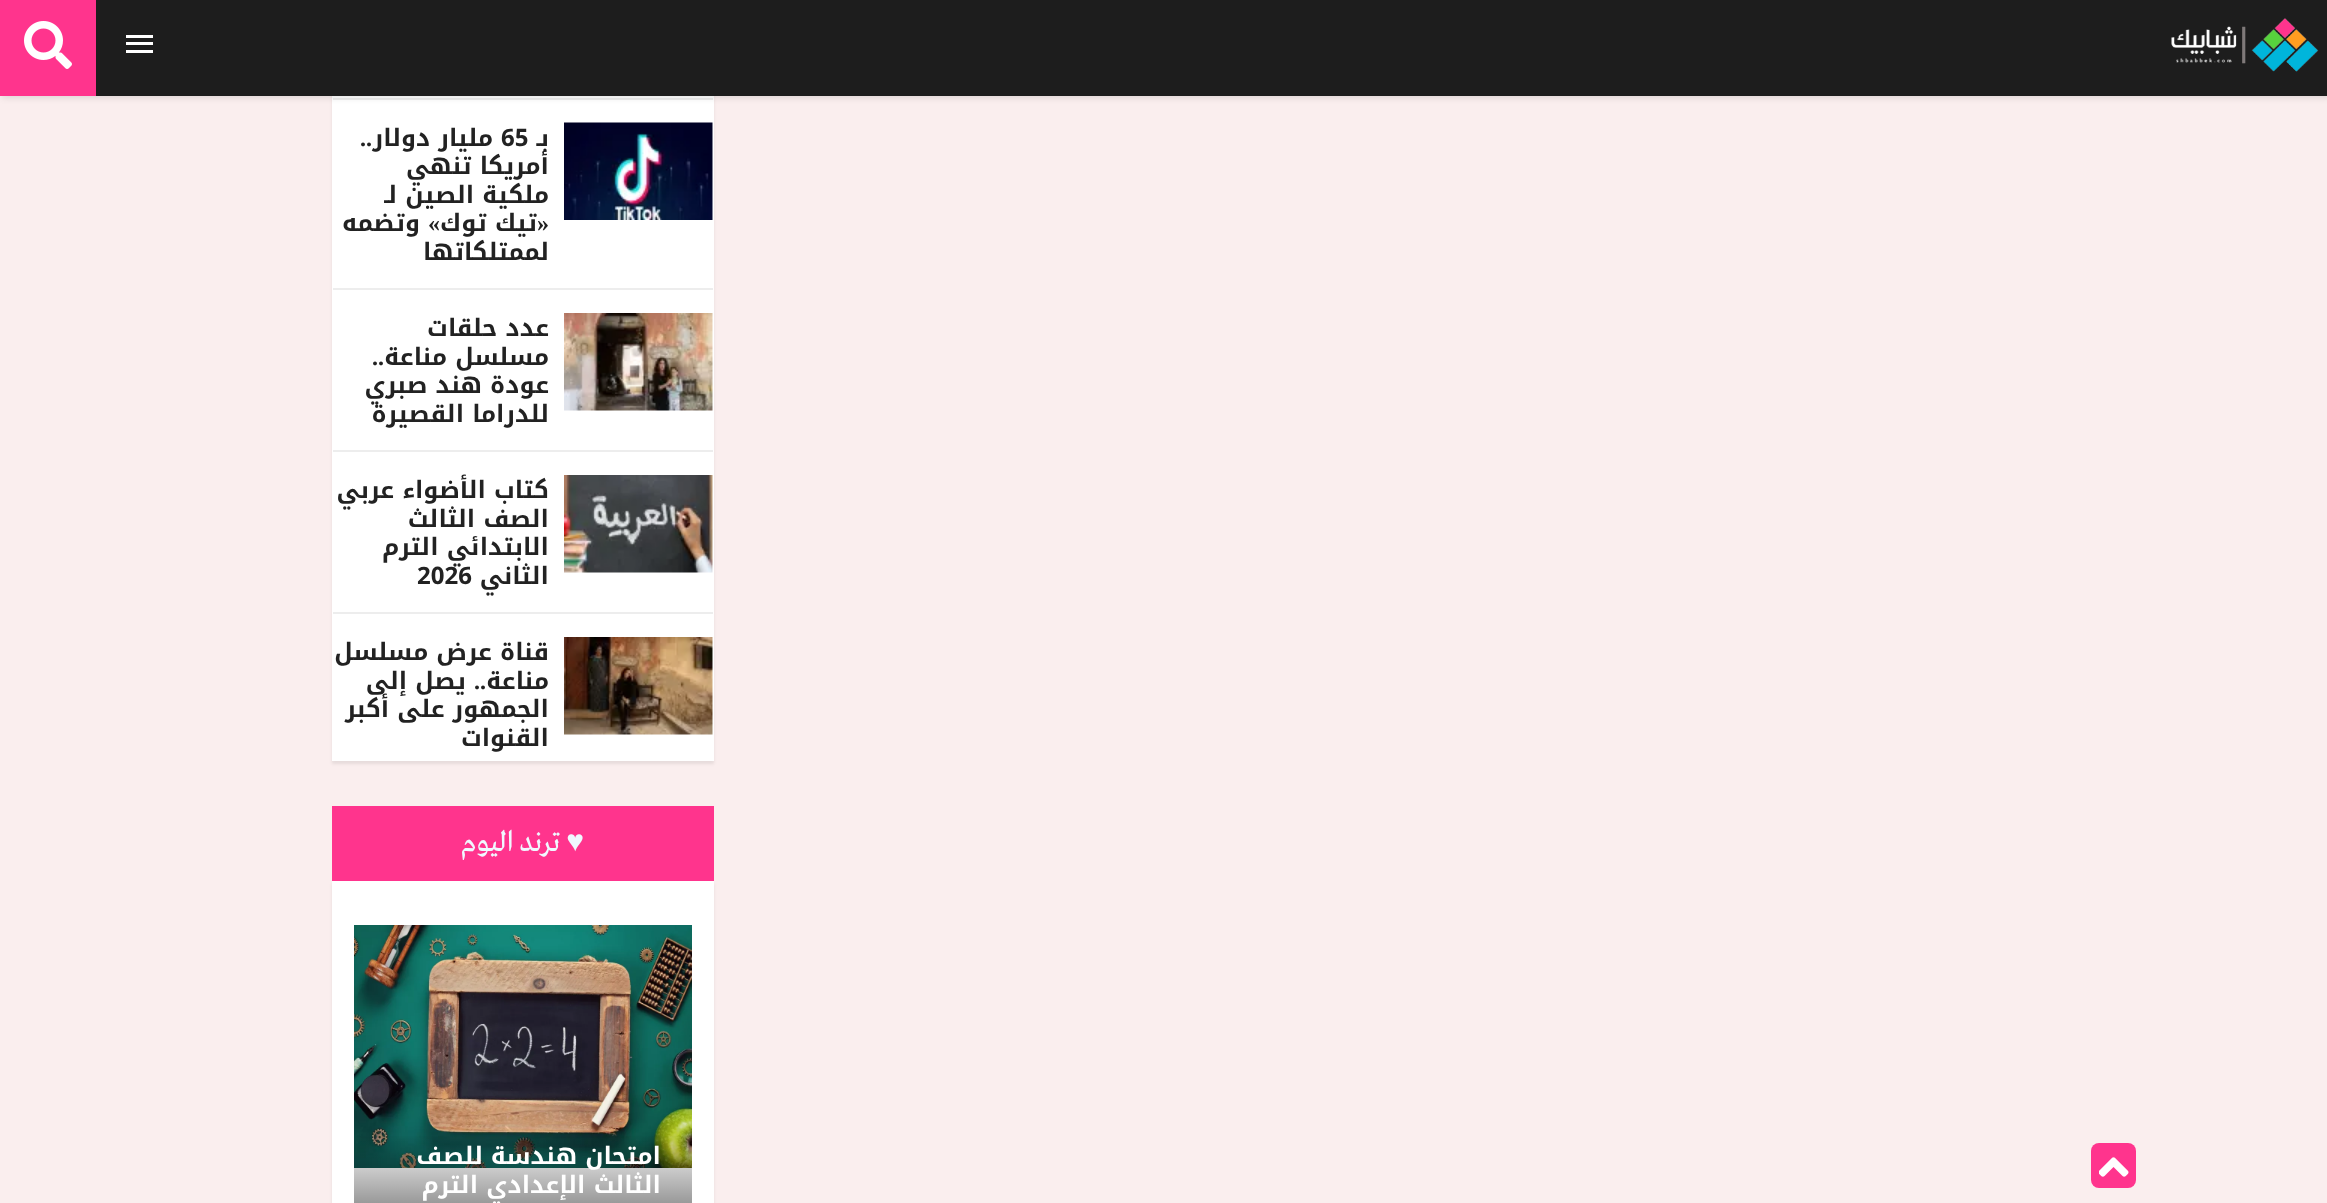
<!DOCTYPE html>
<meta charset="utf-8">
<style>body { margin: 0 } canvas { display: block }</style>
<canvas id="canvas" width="2327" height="1203"></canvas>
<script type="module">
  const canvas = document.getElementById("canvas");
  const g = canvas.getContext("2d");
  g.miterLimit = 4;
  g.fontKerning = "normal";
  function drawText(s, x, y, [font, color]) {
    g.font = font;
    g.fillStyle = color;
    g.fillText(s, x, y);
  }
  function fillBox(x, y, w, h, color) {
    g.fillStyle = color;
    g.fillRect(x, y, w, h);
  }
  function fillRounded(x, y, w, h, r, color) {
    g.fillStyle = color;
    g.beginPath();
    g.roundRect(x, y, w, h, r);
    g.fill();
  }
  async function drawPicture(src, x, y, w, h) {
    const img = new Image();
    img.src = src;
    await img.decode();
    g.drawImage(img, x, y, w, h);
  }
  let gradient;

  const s1 = ["bold 24px Noto Kufi Arabic", "#222222"];
  const s2 = ["bold 24px Liberation Serif", "#222222"];
  const s3 = ["30px Liberation Serif", "#F0F8FF"];
  const s4 = ["30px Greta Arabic", "#F0F8FF"];
  const s5 = ["bold 24px Noto Kufi Arabic", "#FFFFFF"];

  fillBox(0, 0, 2327, 1203, "#FAEEEE");
  g.fillStyle = "rgba(0, 0, 0, 0.08)";
  g.filter = "blur(1.5px)";
  g.beginPath();
  g.rect(332, -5, 382, 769);
  g.fill();
  g.filter = "none";
  fillBox(332, 96, 382, 665, "#FFFFFF");
  fillBox(333, 98, 380, 2, "#EDEDED");
  g.fillStyle = "rgba(0, 0, 0, 0.1)";
  g.filter = "blur(3px)";
  g.beginPath();
  g.rect(2, 2, 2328, 96);
  g.fill();
  g.filter = "none";
  fillBox(96, 0, 2231, 96, "#1D1D1D");
  await drawPicture("pic1.png", 2171, 18, 148, 54);
  fillBox(126, 42, 27, 3, "#FFFFFF");
  fillBox(126, 35, 27, 3, "#FFFFFF");
  fillBox(126, 50, 27, 3, "#FFFFFF");
  fillBox(0, 0, 96, 96, "#FF348D");
  await drawPicture("pic2.png", 24, 21, 48, 48);
  fillRounded(2091, 1143, 45, 45, 8, "#FF348D");
  await drawPicture("pic3.png", 2099, 1157, 30, 20);
  fillBox(333, 288, 380, 2, "#EDEDED");
  await drawPicture("pic4.png", 564, 122, 149, 98);
  g.direction = "rtl";
  drawText("بـ", 549, 146, s1);
  g.direction = "ltr";
  drawText("65", 501, 146, s1);
  g.direction = "rtl";
  drawText("..", 372, 146, s2);
  drawText("مليار دولار", 493, 146, s1);
  drawText("أمريكا تنهي", 549, 174, s1);
  drawText("ملكية الصين لـ", 549, 203, s1);
  drawText("«", 549, 231, s2);
  drawText("تيك توك", 537, 231, s1);
  drawText("»", 440, 231, s2);
  drawText("وتضمه", 420, 231, s1);
  drawText("لممتلكاتها", 549, 260, s1);
  fillBox(333, 450, 380, 2, "#EDEDED");
  await drawPicture("pic5.png", 564, 313, 149, 98);
  drawText("عدد حلقات", 549, 336, s1);
  drawText("مسلسل مناعة", 549, 365, s1);
  drawText("..", 384, 365, s2);
  drawText("عودة هند صبري", 549, 393, s1);
  drawText("للدراما القصيرة", 549, 422, s1);
  fillBox(333, 612, 380, 2, "#EDEDED");
  await drawPicture("pic6.png", 564, 475, 149, 98);
  drawText("كتاب الأضواء عربي", 549, 498, s1);
  drawText("الصف الثالث", 549, 527, s1);
  drawText("الابتدائي الترم", 549, 555, s1);
  drawText("الثاني", 549, 584, s1);
  g.direction = "ltr";
  drawText("2026", 417, 584, s1);
  await drawPicture("pic7.png", 564, 637, 149, 98);
  g.direction = "rtl";
  drawText("قناة عرض مسلسل", 549, 660, s1);
  drawText("مناعة", 549, 689, s1);
  drawText("..", 486, 689, s2);
  drawText("يصل إلى", 466, 689, s1);
  drawText("الجمهور على أكبر", 549, 717, s1);
  drawText("القنوات", 549, 746, s1);
  fillBox(332, 806, 382, 75, "#FF348D");
  drawText("♥", 584, 851, s3);
  drawText("ترند اليوم", 560, 851, s4);
  g.fillStyle = "rgba(0, 0, 0, 0.08)";
  g.filter = "blur(1.5px)";
  g.beginPath();
  g.rect(332, 884, 382, 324);
  g.fill();
  g.filter = "none";
  fillBox(332, 881, 382, 322, "#FFFFFF");
  await drawPicture("pic8.png", 354, 925, 338, 243);
  gradient = g.createLinearGradient(523, 926, 523, 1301);
  gradient.addColorStop(0.55, "rgba(0, 0, 0, 0)");
  gradient.addColorStop(1, "rgba(0, 0, 0, 0.95)");
  g.fillStyle = gradient;
  g.fillRect(354, 1136, 338, 67);
  drawText("امتحان هندسة", 661, 1164, s5);
  drawText("للصف", 483, 1164, s5);
  drawText("الثالث الإعدادي الترم", 661, 1193, s5);
</script>
